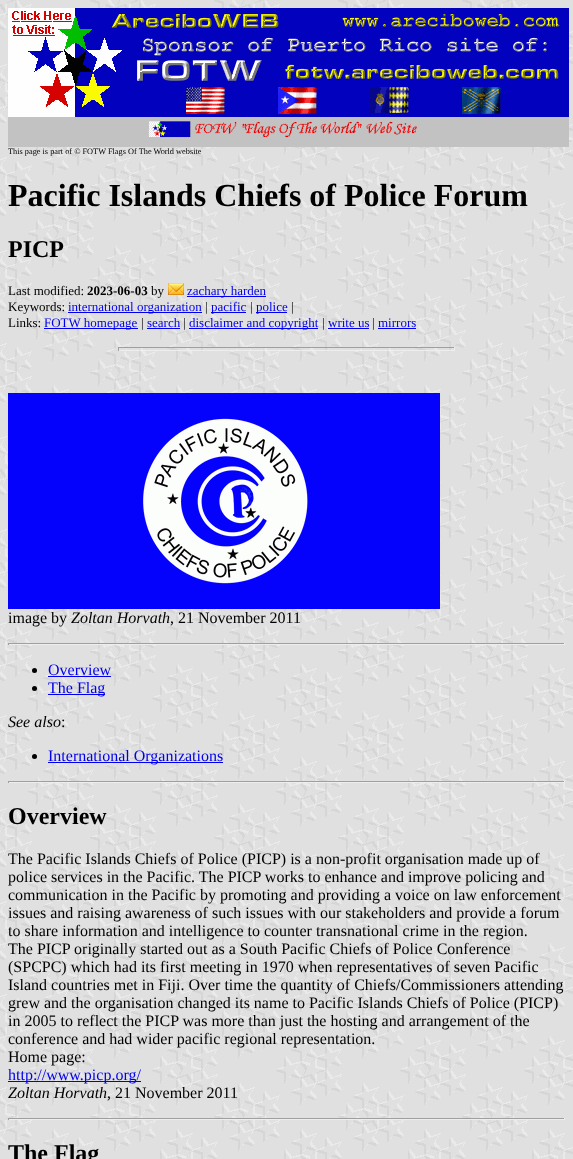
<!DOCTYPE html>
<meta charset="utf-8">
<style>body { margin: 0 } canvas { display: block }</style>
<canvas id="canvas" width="573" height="1159"></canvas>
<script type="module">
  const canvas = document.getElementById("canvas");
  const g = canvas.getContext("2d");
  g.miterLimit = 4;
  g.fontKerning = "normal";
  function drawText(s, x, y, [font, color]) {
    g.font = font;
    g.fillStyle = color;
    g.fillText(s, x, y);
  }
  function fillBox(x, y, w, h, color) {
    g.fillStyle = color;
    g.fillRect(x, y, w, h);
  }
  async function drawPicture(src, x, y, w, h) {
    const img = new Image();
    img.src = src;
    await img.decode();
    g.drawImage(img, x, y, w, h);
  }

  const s1 = ["8.3px Liberation Serif", "#000000"];
  const s2 = ["bold 32px Liberation Serif", "#000000"];
  const s3 = ["bold 24px Liberation Serif", "#000000"];
  const s4 = ["13px Liberation Serif", "#000000"];
  const s5 = ["bold 13px Liberation Serif", "#000000"];
  const s6 = ["13px Liberation Serif", "#0000EE"];
  const s7 = ["16px Liberation Serif", "#000000"];
  const s8 = ["italic 16px Liberation Serif", "#000000"];
  const s9 = ["16px Liberation Serif", "#0000EE"];

  fillBox(0, 0, 573, 1159, "#FFFFFF");
  await drawPicture("pic1.png", 0, 0, 573, 1159);
  await drawPicture("pic2.png", 8, 8, 561, 139);
  drawText("This page is part of © FOTW Flags Of The World website", 8, 154, s1);
  drawText("Pacific Islands Chiefs of Police Forum", 8, 206, s2);
  drawText("PICP", 8, 257, s3);
  drawText("Last modified:", 8, 295, s4);
  drawText("2023-06-03", 87, 295, s5);
  drawText("by", 151, 295, s4);
  await drawPicture("pic3.png", 168, 283, 16, 12);
  fillBox(187, 296, 79, 1, "#0000EE");
  drawText("zachary harden", 187, 295, s6);
  drawText("Keywords:", 8, 311, s4);
  fillBox(68, 312, 134, 1, "#0000EE");
  drawText("international organization", 68, 311, s6);
  drawText("|", 205, 311, s4);
  fillBox(211, 312, 35, 1, "#0000EE");
  drawText("pacific", 211, 311, s6);
  drawText("|", 250, 311, s4);
  fillBox(256, 312, 31, 1, "#0000EE");
  drawText("police", 256, 311, s6);
  drawText("|", 291, 311, s4);
  drawText("Links:", 8, 327, s4);
  fillBox(44, 328, 94, 1, "#0000EE");
  drawText("FOTW homepage", 44, 327, s6);
  drawText("|", 141, 327, s4);
  drawText("search", 147, 327, s6);
  fillBox(147, 328, 33, 1, "#0000EE");
  drawText("|", 183, 327, s4);
  fillBox(189, 328, 129, 1, "#0000EE");
  drawText("disclaimer and copyright", 189, 327, s6);
  drawText("|", 322, 327, s4);
  drawText("write us", 328, 327, s6);
  fillBox(328, 328, 41, 1, "#0000EE");
  drawText("|", 372, 327, s4);
  drawText("mirrors", 378, 327, s6);
  fillBox(378, 328, 38, 1, "#0000EE");
  fillBox(118, 347, 337, 1, "#9F9F9F");
  fillBox(454, 347, 1, 4, "#EEEEEE");
  fillBox(118, 350, 337, 1, "#EEEEEE");
  fillBox(118, 347, 1, 4, "#9F9F9F");
  await drawPicture("pic4.png", 8, 393, 432, 216);
  drawText("image by", 8, 623, s7);
  drawText("Zoltan Horvath", 71, 623, s8);
  drawText(", 21 November 2011", 170, 623, s7);
  fillBox(8, 643, 557, 1, "#9F9F9F");
  fillBox(564, 643, 1, 2, "#EEEEEE");
  fillBox(8, 644, 557, 1, "#EEEEEE");
  fillBox(8, 643, 1, 2, "#9F9F9F");
  g.fillStyle = "#000000";
  g.beginPath();
  g.arc(34.5, 670.5, 2.5, 0, Math.PI * 2);
  g.fill();
  drawText("Overview", 48, 675, s9);
  fillBox(48, 676, 63, 1, "#0000EE");
  g.fillStyle = "#000000";
  g.beginPath();
  g.arc(34.5, 688.5, 2.5, 0, Math.PI * 2);
  g.fill();
  fillBox(48, 694, 57, 1, "#0000EE");
  drawText("The Flag", 48, 693, s9);
  drawText("See also", 8, 727, s8);
  drawText(":", 61, 727, s7);
  g.beginPath();
  g.arc(34.5, 756.5, 2.5, 0, Math.PI * 2);
  g.fill();
  fillBox(48, 762, 175, 1, "#0000EE");
  drawText("International Organizations", 48, 761, s9);
  fillBox(8, 781, 557, 1, "#9F9F9F");
  fillBox(564, 781, 1, 2, "#EEEEEE");
  fillBox(8, 782, 557, 1, "#EEEEEE");
  fillBox(8, 781, 1, 2, "#9F9F9F");
  drawText("Overview", 8, 824, s3);
  drawText("The Pacific Islands Chiefs of Police (PICP) is a non-profit organisation made up of", 8, 864, s7);
  drawText("police services in the Pacific. The PICP works to enhance and improve policing and", 8, 882, s7);
  drawText("communication in the Pacific by promoting and providing a voice on law enforcement", 8, 900, s7);
  drawText("issues and raising awareness of such issues with our stakeholders and provide a forum", 8, 918, s7);
  drawText("to share information and intelligence to counter transnational crime in the region.", 8, 936, s7);
  drawText("The PICP originally started out as a South Pacific Chiefs of Police Conference", 8, 954, s7);
  drawText("(SPCPC) which had its first meeting in 1970 when representatives of seven Pacific", 8, 972, s7);
  drawText("Island countries met in Fiji. Over time the quantity of Chiefs/Commissioners attending", 8, 990, s7);
  drawText("grew and the organisation changed its name to Pacific Islands Chiefs of Police (PICP)", 8, 1008, s7);
  drawText("in 2005 to reflect the PICP was more than just the hosting and arrangement of the", 8, 1026, s7);
  drawText("conference and had wider pacific regional representation.", 8, 1044, s7);
  drawText("Home page:", 8, 1062, s7);
  fillBox(8, 1081, 133, 1, "#0000EE");
  drawText("http://www.picp.org/", 8, 1080, s9);
  drawText("Zoltan Horvath", 8, 1098, s8);
  drawText(", 21 November 2011", 107, 1098, s7);
  fillBox(8, 1118, 557, 1, "#9F9F9F");
  fillBox(564, 1118, 1, 2, "#EEEEEE");
  fillBox(8, 1119, 557, 1, "#EEEEEE");
  fillBox(8, 1118, 1, 2, "#9F9F9F");
  drawText("The Flag", 8, 1161, s3);
</script>
